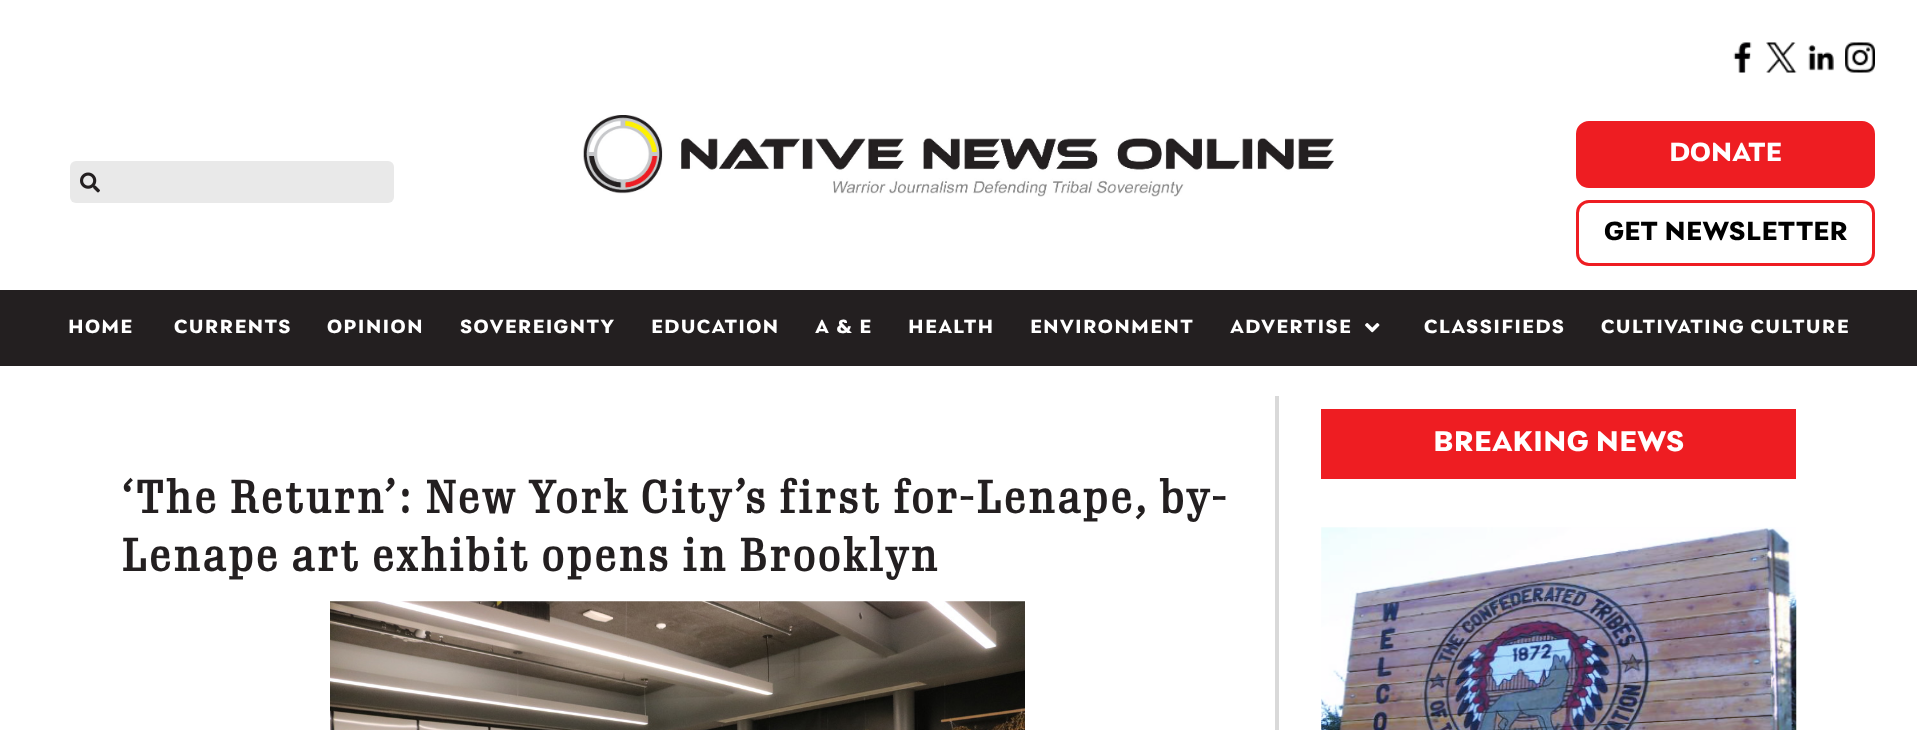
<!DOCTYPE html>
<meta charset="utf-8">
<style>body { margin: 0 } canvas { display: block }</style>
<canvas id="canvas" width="1917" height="730"></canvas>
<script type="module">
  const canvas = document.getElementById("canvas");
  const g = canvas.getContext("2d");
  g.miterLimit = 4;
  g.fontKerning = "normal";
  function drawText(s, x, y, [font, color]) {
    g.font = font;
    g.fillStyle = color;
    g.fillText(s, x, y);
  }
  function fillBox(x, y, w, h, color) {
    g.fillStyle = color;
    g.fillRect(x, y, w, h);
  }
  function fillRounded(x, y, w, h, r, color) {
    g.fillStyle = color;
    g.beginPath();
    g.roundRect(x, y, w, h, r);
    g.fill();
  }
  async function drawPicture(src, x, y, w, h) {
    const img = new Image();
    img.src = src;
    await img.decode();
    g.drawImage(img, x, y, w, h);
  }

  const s1 = ["bold 27.5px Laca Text", "#FFFFFF"];
  const s2 = ["bold 27.5px Laca Text", "#000000"];
  const s3 = ["bold 20px Laca Text", "#FFFFFF"];
  const s4 = ["bold 30px Laca Text", "#FFFFFF"];
  const s5 = ["bold 45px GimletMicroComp", "#231F20"];

  fillBox(0, 0, 1917, 730, "#FFFFFF");
  await drawPicture("pic1.png", 1733, 42, 19, 31);
  await drawPicture("pic2.png", 1766, 42, 31, 31);
  await drawPicture("pic3.png", 1808, 44, 26, 27);
  await drawPicture("pic4.png", 1845, 42, 30, 31);
  fillRounded(70, 161, 324, 42, 6, "#E9E9E9");
  await drawPicture("pic5.png", 80, 172, 20, 21);
  await drawPicture("pic6.png", 583, 115, 751, 82);
  g.fillStyle = "#EE1D22";
  g.beginPath();
  g.roundRect(1577.5, 122.5, 296, 64, 11.5);
  g.fill();
  g.strokeStyle = "#EE1D22";
  g.lineWidth = 3;
  g.stroke();
  drawText("DONATE", 1669, 161, s1);
  g.beginPath();
  g.roundRect(1577.5, 201.5, 296, 63, 11.5);
  g.stroke();
  drawText("GET NEWSLETTER", 1604, 240, s2);
  fillBox(0, 290, 1917, 76, "#231F20");
  g.letterSpacing = "1.25px";
  drawText("HOME", 68, 333, s3);
  drawText("CURRENTS", 174, 333, s3);
  drawText("OPINION", 327, 333, s3);
  drawText("SOVEREIGNTY", 460, 333, s3);
  drawText("EDUCATION", 651, 333, s3);
  drawText("A & E", 815, 333, s3);
  drawText("HEALTH", 908, 333, s3);
  drawText("ENVIRONMENT", 1030, 333, s3);
  drawText("ADVERTISE", 1230, 333, s3);
  await drawPicture("pic7.png", 1365, 323, 15, 10);
  drawText("CLASSIFIEDS", 1424, 333, s3);
  drawText("CULTIVATING CULTURE", 1601, 333, s3);
  fillBox(1275, 396, 4, 334, "#D9D9D9");
  fillBox(1321, 409, 475, 70, "#EE1D22");
  g.letterSpacing = "0px";
  drawText("BREAKING NEWS", 1433, 451, s4);
  await drawPicture("pic8.png", 1321, 527, 476, 203);
  g.letterSpacing = "2px";
  drawText("‘The Return’: New York City’s first for-Lenape, by-", 121, 513, s5);
  drawText("Lenape art exhibit opens in Brooklyn", 121, 571, s5);
  await drawPicture("pic9.png", 330, 601, 695, 129);
</script>
